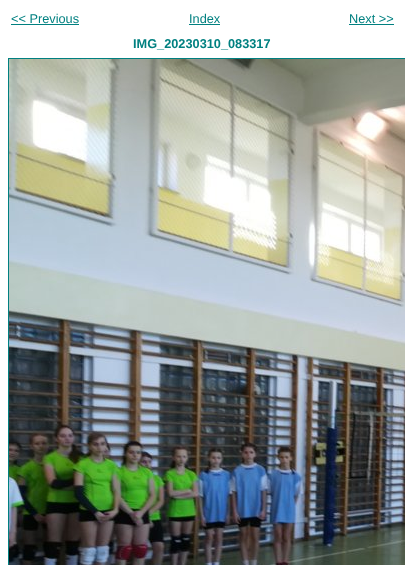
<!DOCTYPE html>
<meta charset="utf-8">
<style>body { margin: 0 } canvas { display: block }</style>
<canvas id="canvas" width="405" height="565"></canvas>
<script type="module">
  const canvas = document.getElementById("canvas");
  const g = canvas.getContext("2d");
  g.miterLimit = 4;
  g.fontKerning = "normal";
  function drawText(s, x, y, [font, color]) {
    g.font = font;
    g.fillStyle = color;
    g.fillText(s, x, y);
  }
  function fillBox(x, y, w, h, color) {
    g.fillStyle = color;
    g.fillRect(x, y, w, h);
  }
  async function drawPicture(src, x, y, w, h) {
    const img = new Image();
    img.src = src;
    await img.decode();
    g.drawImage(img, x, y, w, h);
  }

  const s1 = ["12.75px Liberation Sans", "#008080"];
  const s2 = ["bold 12.75px Liberation Sans", "#008080"];

  fillBox(0, 0, 405, 565, "#FFFFFF");
  drawText("<< Previous", 11, 23, s1);
  fillBox(11, 24, 68, 1, "#008080");
  drawText("Index", 189, 23, s1);
  fillBox(189, 24, 31, 1, "#008080");
  drawText("Next >>", 349, 23, s1);
  fillBox(349, 24, 45, 1, "#008080");
  drawText("IMG_20230310_083317", 133, 48, s2);
  g.strokeStyle = "#008080";
  g.strokeRect(8.5, 58.5, 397, 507);
  await drawPicture("pic1.png", 9, 59, 396, 506);
</script>
